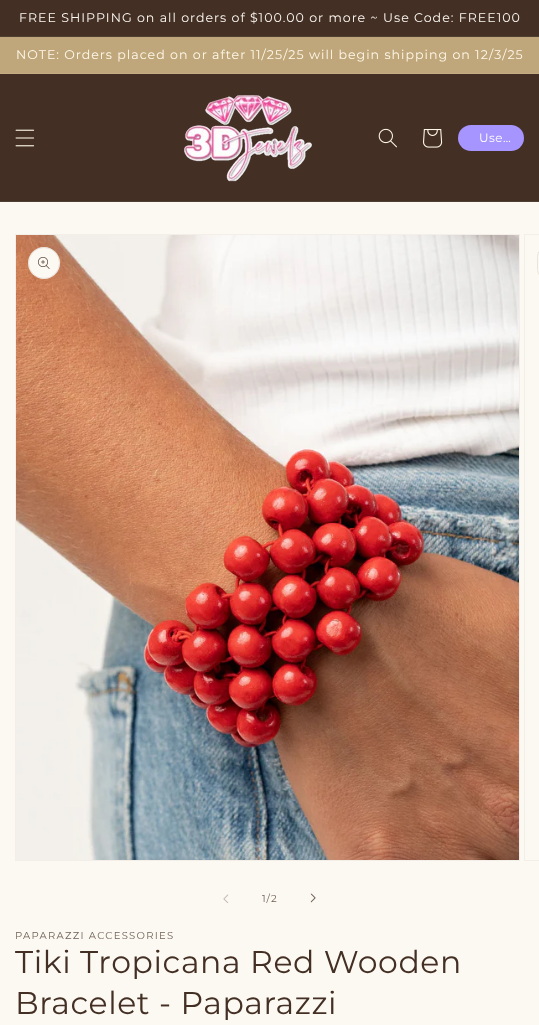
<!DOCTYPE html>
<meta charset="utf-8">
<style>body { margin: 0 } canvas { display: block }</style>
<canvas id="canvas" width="539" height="1025"></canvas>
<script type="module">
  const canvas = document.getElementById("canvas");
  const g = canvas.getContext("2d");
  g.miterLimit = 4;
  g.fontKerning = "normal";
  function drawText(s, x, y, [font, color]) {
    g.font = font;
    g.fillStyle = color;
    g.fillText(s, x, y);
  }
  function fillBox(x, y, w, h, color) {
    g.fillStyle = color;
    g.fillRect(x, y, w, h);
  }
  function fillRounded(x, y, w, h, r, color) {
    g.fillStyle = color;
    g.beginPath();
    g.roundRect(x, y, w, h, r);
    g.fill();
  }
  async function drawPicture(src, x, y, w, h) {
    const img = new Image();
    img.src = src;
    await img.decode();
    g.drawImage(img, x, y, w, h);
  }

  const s1 = ["12.6px Montserrat", "#FCF9F2"];
  const s2 = ["12.6px Montserrat", "#FFF8E9"];
  const s3 = ["12px Montserrat", "#FFFFFF"];
  const s4 = ["10px Montserrat", "#716258"];
  const s5 = ["31.5px Montserrat", "#432F24"];

  fillBox(0, 0, 539, 1025, "#FCF9F2");
  fillBox(0, 0, 539, 36, "#432F24");
  fillBox(0, 36, 539, 1, "#523F34");
  g.letterSpacing = "1px";
  drawText("FREE SHIPPING on all orders of $100.00 or more ~ Use Code: FREE100", 19, 22, s1);
  fillBox(0, 37, 539, 36, "#BFA77B");
  fillBox(0, 73, 539, 1, "#C4AD84");
  drawText("NOTE: Orders placed on or after 11/25/25 will begin shipping on 12/3/25", 16, 59, s2);
  fillBox(0, 74, 539, 127, "#432F24");
  fillBox(0, 201, 539, 1, "#523F34");
  await drawPicture("pic1.png", 15, 129, 20, 18);
  await drawPicture("pic2.png", 184, 95, 128, 87);
  await drawPicture("pic3.png", 378, 128, 19, 20);
  await drawPicture("pic4.png", 423, 129, 20, 19);
  fillRounded(458, 125, 66, 26, 13, "#A694FF");
  g.letterSpacing = "0.5px";
  drawText("Use…", 479, 142, s3);
  g.strokeStyle = "#F3EFE8";
  g.strokeRect(15.5, 234.5, 504, 626);
  await drawPicture("pic5.png", 16, 235, 503, 625);
  g.fillStyle = "#FCF9F2";
  g.beginPath();
  g.arc(44, 263, 16, 0, Math.PI * 2);
  g.fill();
  g.beginPath();
  g.arc(44, 263, 15.5, 0, Math.PI * 2);
  g.strokeStyle = "rgba(67, 47, 36, 0.1)";
  g.stroke();
  await drawPicture("pic6.png", 38, 257, 12, 12);
  g.strokeStyle = "#F3EFE8";
  g.strokeRect(524.5, 234.5, 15, 626);
  g.beginPath();
  g.roundRect(537.5, 247.5, 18, 31, 15.5);
  g.strokeStyle = "#E9E5DD";
  g.stroke();
  await drawPicture("pic7.png", 223, 894, 6, 9);
  g.letterSpacing = "1px";
  drawText("1/2", 262, 902, s4);
  await drawPicture("pic8.png", 310, 893, 6, 10);
  g.letterSpacing = "1.3px";
  drawText("PAPARAZZI ACCESSORIES", 15, 939, s4);
  g.letterSpacing = "0.6px";
  drawText("Tiki Tropicana Red Wooden", 15, 973, s5);
  drawText("Bracelet - Paparazzi", 15, 1014, s5);
</script>
